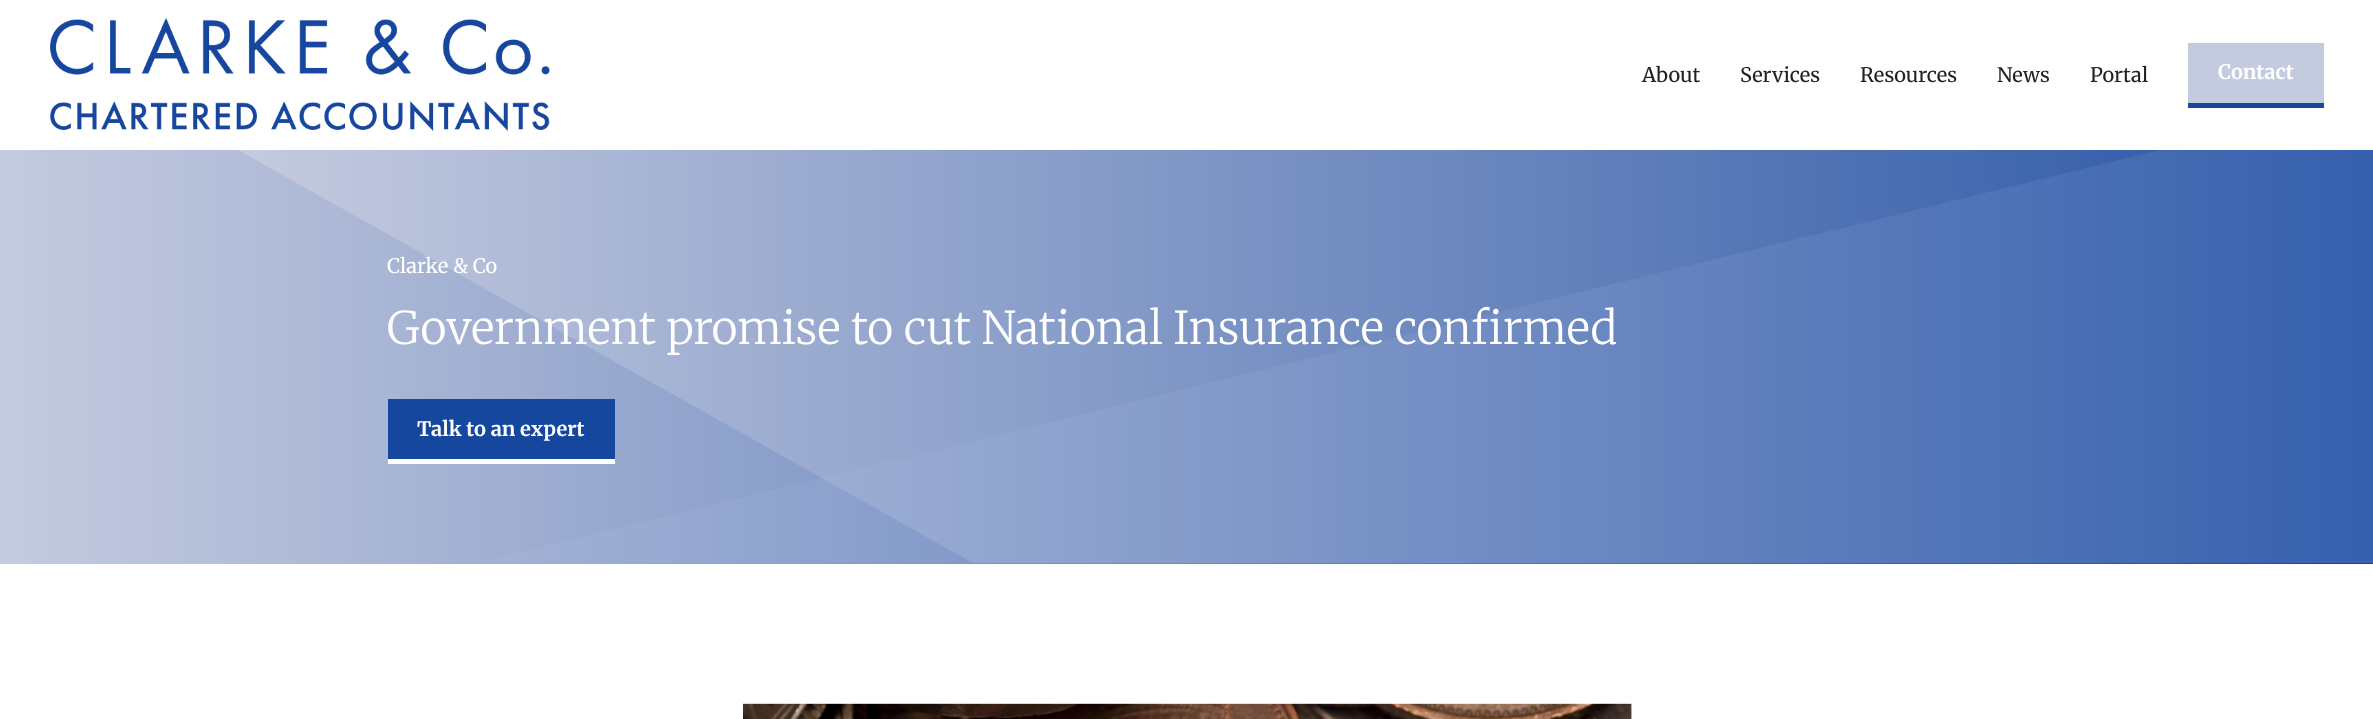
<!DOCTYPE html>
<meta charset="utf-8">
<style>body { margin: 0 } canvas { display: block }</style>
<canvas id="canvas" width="2373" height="719"></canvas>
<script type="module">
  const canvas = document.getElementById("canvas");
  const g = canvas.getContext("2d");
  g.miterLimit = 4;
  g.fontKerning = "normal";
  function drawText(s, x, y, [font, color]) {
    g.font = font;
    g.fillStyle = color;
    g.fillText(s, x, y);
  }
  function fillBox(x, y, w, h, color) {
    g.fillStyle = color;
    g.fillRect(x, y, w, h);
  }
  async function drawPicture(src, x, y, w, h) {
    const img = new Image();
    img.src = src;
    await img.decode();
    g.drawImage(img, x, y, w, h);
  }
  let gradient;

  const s1 = ["20px Merriweather", "#222222"];
  const s2 = ["bold 20px Merriweather", "#FFFFFF"];
  const s3 = ["20px Merriweather", "#FFFFFF"];
  const s4 = ["300 45px Merriweather", "#FFFFFF"];

  fillBox(0, 0, 2373, 719, "#FFFFFF");
  await drawPicture("pic1.png", 50, 17, 500, 115);
  drawText("About", 1642, 82, s1);
  drawText("Services", 1740, 82, s1);
  drawText("Resources", 1860, 82, s1);
  drawText("News", 1997, 82, s1);
  drawText("Portal", 2090, 82, s1);
  fillBox(2188, 43, 136, 60, "#C5CBDF");
  fillBox(2188, 103, 136, 5, "#16479F");
  drawText("Contact", 2218, 79, s2);
  gradient = g.createLinearGradient(0, 357, 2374, 357);
  gradient.addColorStop(0, "#C5CBDF");
  gradient.addColorStop(1, "#16479F");
  g.fillStyle = gradient;
  g.fillRect(0, 150, 2373, 414);
  gradient = g.createLinearGradient(238, 357, 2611, 357);
  gradient.addColorStop(0, "#C5CBDF");
  gradient.addColorStop(1, "#16479F");
  g.fillStyle = gradient;
  g.beginPath();
  g.moveTo(238, 150);
  g.lineTo(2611, 150);
  g.lineTo(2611, 563);
  g.lineTo(973, 563);
  g.closePath();
  g.fill();
  g.fillStyle = "rgba(191, 203, 243, 0.1)";
  g.beginPath();
  g.moveTo(2160, 150);
  g.lineTo(475, 563);
  g.lineTo(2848, 563);
  g.lineTo(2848, 150);
  g.closePath();
  g.fill();
  drawText("Clarke & Co", 387, 273, s3);
  drawText("Government promise to cut National Insurance confirmed", 387, 344, s4);
  fillBox(388, 399, 227, 60, "#16479F");
  fillBox(388, 459, 227, 5, "#FFFFFF");
  drawText("Talk to an expert", 417, 436, s2);
  await drawPicture("pic2.png", 743, 703, 889, 16);
</script>
